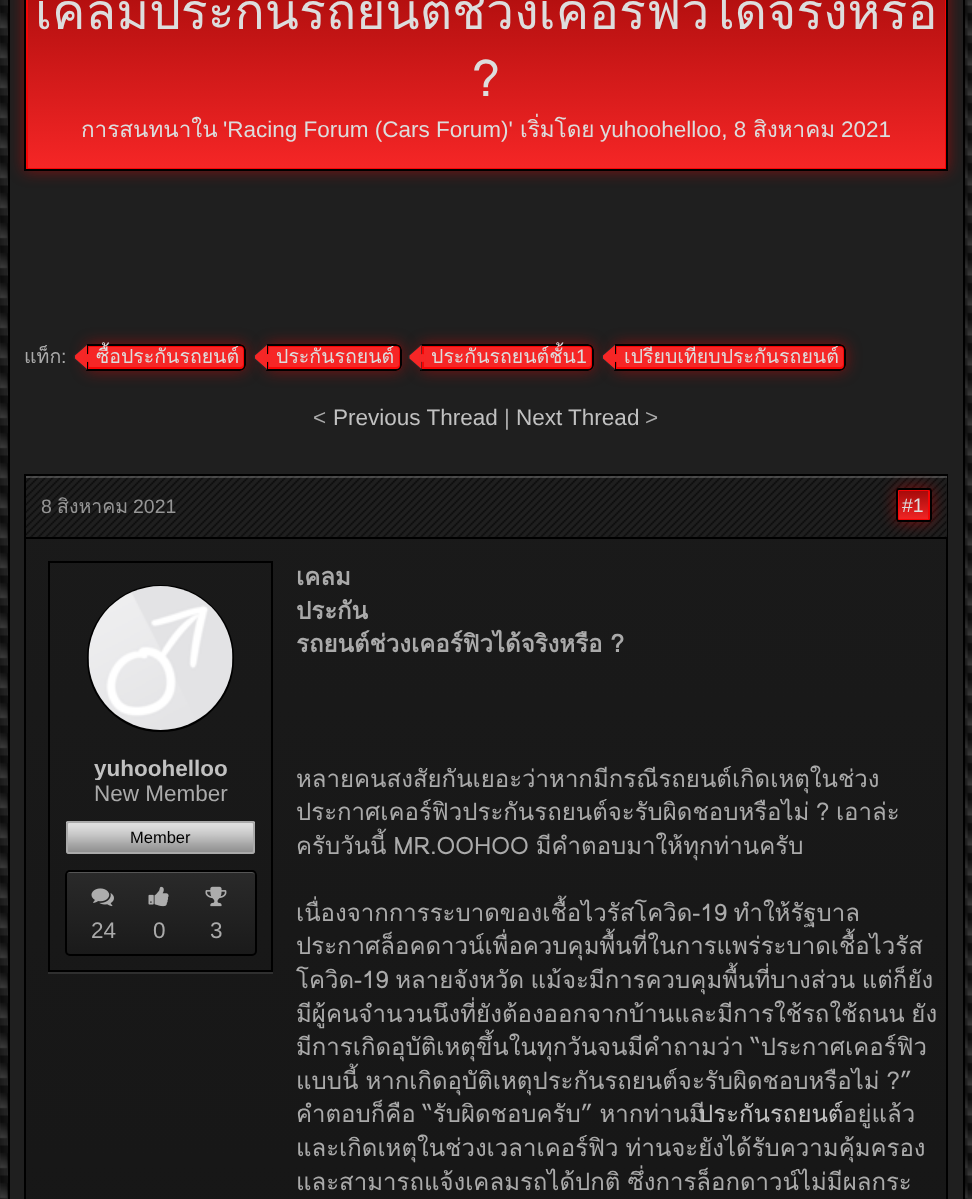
<!DOCTYPE html>
<meta charset="utf-8">
<style>body { margin: 0 } canvas { display: block }</style>
<canvas id="canvas" width="972" height="1199"></canvas>
<script type="module">
  const canvas = document.getElementById("canvas");
  const g = canvas.getContext("2d");
  g.miterLimit = 4;
  g.fontKerning = "normal";
  function drawText(s, x, y, [font, color]) {
    g.font = font;
    g.fillStyle = color;
    g.fillText(s, x, y);
  }
  function fillBox(x, y, w, h, color) {
    g.fillStyle = color;
    g.fillRect(x, y, w, h);
  }
  function fillRounded(x, y, w, h, r, color) {
    g.fillStyle = color;
    g.beginPath();
    g.roundRect(x, y, w, h, r);
    g.fill();
  }
  async function drawPicture(src, x, y, w, h) {
    const img = new Image();
    img.src = src;
    await img.decode();
    g.drawImage(img, x, y, w, h);
  }
  let gradient;

  const s1 = ["50px Loma", "#DDDDDD"];
  const s2 = ["22.5px Loma", "#DDDDDD"];
  const s3 = ["22.5px Liberation Sans", "#DDDDDD"];
  const s4 = ["19.5px Loma", "#AAAAAA"];
  const s5 = ["19.5px Liberation Sans", "#AAAAAA"];
  const s6 = ["19.5px Loma", "#DDDDDD"];
  const s7 = ["19.5px Liberation Sans", "#DDDDDD"];
  const s8 = ["22.5px Liberation Sans", "#AAAAAA"];
  const s9 = ["22.5px Liberation Sans", "#C1C1C1"];
  const s10 = ["19.5px Liberation Sans", "#969696"];
  const s11 = ["19.5px Loma", "#969696"];
  const s12 = ["bold 22.5px Liberation Sans", "#C1C1C1"];
  const s13 = ["16.5px Liberation Sans", "#000000"];
  const s14 = ["bold 24px Loma", "#AAAAAA"];
  const s15 = ["24px Loma", "#AAAAAA"];
  const s16 = ["24px Loma", "#C1C1C1"];

  fillBox(0, 0, 972, 1199, "#FFFFFF");
  await drawPicture("pic1.png", 0, 0, 972, 1199);
  g.fillStyle = "rgba(0, 0, 0, 0.5)";
  g.filter = "blur(2px)";
  g.beginPath();
  g.rect(8, -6, 957, 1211);
  g.fill();
  g.filter = "none";
  g.fillStyle = "#1F1F1F";
  g.beginPath();
  g.rect(9, -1, 955, 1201);
  g.fill();
  g.strokeStyle = "#000000";
  g.lineWidth = 2;
  g.stroke();
  g.fillStyle = "rgba(224, 0, 0, 0.5)";
  g.filter = "blur(7.5px)";
  g.beginPath();
  g.rect(24, -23, 924, 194);
  g.fill();
  g.filter = "none";
  gradient = g.createLinearGradient(486, 170, 486, -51);
  gradient.addColorStop(0, "#F62626");
  gradient.addColorStop(1, "#A10909");
  g.fillStyle = gradient;
  g.fillRect(28, 0, 917, 168);
  g.strokeStyle = "#F70505";
  g.strokeRect(27, -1, 919, 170);
  g.strokeStyle = "#000000";
  g.strokeRect(25, -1, 922, 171);
  drawText("เคลมประกันรถยนต์ช่วงเคอร์ฟิวได้จริงหรือ", 35, 29, s1);
  drawText("?", 472, 96, s1);
  drawText("การสนทนาใน", 81, 137, s2);
  drawText("'Racing Forum (Cars Forum)'", 223, 137, s3);
  drawText("เริ่มโดย", 520, 137, s2);
  drawText("yuhoohelloo, 8", 600, 137, s3);
  drawText("สิงหาคม", 753, 137, s2);
  drawText("2021", 841, 137, s3);
  drawText("แท็ก", 24, 363, s4);
  drawText(":", 61, 363, s5);
  g.fillStyle = "rgba(224, 0, 0, 0.5)";
  g.filter = "blur(7.5px)";
  g.beginPath();
  g.roundRect(86, 344, 160, 27, 6);
  g.fill();
  g.filter = "none";
  g.fillStyle = "#F62626";
  g.beginPath();
  g.roundRect(86, 344, 160, 27, [0, 6, 6, 0]);
  g.fill();
  g.beginPath();
  g.roundRect(88, 346, 156, 22, [0, 4, 4, 0]);
  g.strokeStyle = "#F70505";
  g.stroke();
  g.beginPath();
  g.roundRect(87, 345, 158, 25, [0, 5, 5, 0]);
  g.strokeStyle = "#000000";
  g.stroke();
  g.fillStyle = "#282828";
  g.beginPath();
  g.moveTo(87, 343.5);
  g.lineTo(87, 370.5);
  g.lineTo(73.5, 358.5);
  g.lineTo(73.5, 355.5);
  g.closePath();
  g.fill();
  g.fillStyle = "#F62626";
  g.beginPath();
  g.moveTo(87, 345);
  g.lineTo(87, 369);
  g.lineTo(75, 358.5);
  g.lineTo(75, 355.5);
  g.closePath();
  g.fill();
  drawText("ซื้อประกันรถยนต์", 96, 363, s6);
  g.fillStyle = "#F62626";
  g.beginPath();
  g.arc(88, 358, 3, 0, Math.PI * 2);
  g.fill();
  g.strokeStyle = "#F62626";
  g.stroke();
  g.fillStyle = "rgba(224, 0, 0, 0.5)";
  g.filter = "blur(7.5px)";
  g.beginPath();
  g.roundRect(266, 344, 136, 27, 6);
  g.fill();
  g.filter = "none";
  g.fillStyle = "#F62626";
  g.beginPath();
  g.roundRect(266, 344, 136, 27, [0, 6, 6, 0]);
  g.fill();
  g.beginPath();
  g.roundRect(268, 346, 132, 22, [0, 4, 4, 0]);
  g.strokeStyle = "#F70505";
  g.stroke();
  g.beginPath();
  g.roundRect(267, 345, 134, 25, [0, 5, 5, 0]);
  g.strokeStyle = "#000000";
  g.stroke();
  g.fillStyle = "#282828";
  g.beginPath();
  g.moveTo(267, 343.5);
  g.lineTo(267, 370.5);
  g.lineTo(253.5, 358.5);
  g.lineTo(253.5, 355.5);
  g.closePath();
  g.fill();
  g.fillStyle = "#F62626";
  g.beginPath();
  g.moveTo(267, 345);
  g.lineTo(267, 369);
  g.lineTo(255, 358.5);
  g.lineTo(255, 355.5);
  g.closePath();
  g.fill();
  g.beginPath();
  g.arc(268, 358, 3, 0, Math.PI * 2);
  g.fill();
  g.strokeStyle = "#F62626";
  g.stroke();
  drawText("ประกันรถยนต์", 276, 363, s6);
  g.fillStyle = "rgba(224, 0, 0, 0.5)";
  g.filter = "blur(7.5px)";
  g.beginPath();
  g.roundRect(420, 344, 174, 27, 6);
  g.fill();
  g.filter = "none";
  g.fillStyle = "#F62626";
  g.beginPath();
  g.roundRect(420, 344, 174, 27, [0, 6, 6, 0]);
  g.fill();
  g.beginPath();
  g.roundRect(423, 346, 169, 22, [0, 4, 4, 0]);
  g.strokeStyle = "#F70505";
  g.stroke();
  g.beginPath();
  g.roundRect(421, 345, 172, 25, [0, 5, 5, 0]);
  g.strokeStyle = "#000000";
  g.stroke();
  g.fillStyle = "#282828";
  g.beginPath();
  g.moveTo(421.5, 343.5);
  g.lineTo(421.5, 370.5);
  g.lineTo(408, 358.5);
  g.lineTo(408, 355.5);
  g.closePath();
  g.fill();
  g.fillStyle = "#F62626";
  g.beginPath();
  g.moveTo(421.5, 345);
  g.lineTo(421.5, 369);
  g.lineTo(409.5, 358.5);
  g.lineTo(409.5, 355.5);
  g.closePath();
  g.fill();
  g.beginPath();
  g.roundRect(420, 355, 5, 6, 2.5);
  g.fill();
  g.strokeStyle = "#F62626";
  g.stroke();
  drawText("ประกันรถยนต์ชั้น", 431, 363, s6);
  drawText("1", 576, 363, s7);
  g.fillStyle = "rgba(224, 0, 0, 0.5)";
  g.filter = "blur(7.5px)";
  g.beginPath();
  g.roundRect(614, 344, 232, 27, 6);
  g.fill();
  g.filter = "none";
  g.fillStyle = "#F62626";
  g.beginPath();
  g.roundRect(614, 344, 232, 27, [0, 6, 6, 0]);
  g.fill();
  g.beginPath();
  g.roundRect(616, 346, 228, 22, [0, 4, 4, 0]);
  g.strokeStyle = "#F70505";
  g.stroke();
  g.beginPath();
  g.roundRect(615, 345, 230, 25, [0, 5, 5, 0]);
  g.strokeStyle = "#000000";
  g.stroke();
  g.fillStyle = "#282828";
  g.beginPath();
  g.moveTo(615, 343.5);
  g.lineTo(615, 370.5);
  g.lineTo(601.5, 358.5);
  g.lineTo(601.5, 355.5);
  g.closePath();
  g.fill();
  g.fillStyle = "#F62626";
  g.beginPath();
  g.moveTo(615, 345);
  g.lineTo(615, 369);
  g.lineTo(603, 358.5);
  g.lineTo(603, 355.5);
  g.closePath();
  g.fill();
  g.beginPath();
  g.arc(616, 358, 3, 0, Math.PI * 2);
  g.fill();
  g.strokeStyle = "#F62626";
  g.stroke();
  drawText("เปรียบเทียบประกันรถยนต์", 624, 363, s6);
  drawText("<", 313, 425, s8);
  drawText("Previous Thread", 333, 425, s9);
  drawText("|", 504, 425, s8);
  drawText("Next Thread", 516, 425, s9);
  drawText(">", 645, 425, s8);
  gradient = g.createLinearGradient(486, 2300, 486, 476);
  gradient.addColorStop(0, "#121212");
  gradient.addColorStop(1, "#1A1A1A");
  g.fillStyle = gradient;
  g.fillRect(26, 539, 920, 660);
  g.strokeStyle = "#000000";
  g.strokeRect(25, 475, 922, 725);
  fillBox(946, 476, 1, 61, "#1D1D1D");
  await drawPicture("pic2.png", 26, 476, 921, 61);
  fillBox(26, 476, 921, 2, "rgba(255, 255, 255, 0.2)");
  fillBox(26, 537, 921, 2, "#000000");
  drawText("8", 41, 513, s10);
  drawText("สิงหาคม", 57, 513, s11);
  drawText("2021", 133, 513, s10);
  g.fillStyle = "rgba(224, 0, 0, 0.5)";
  g.filter = "blur(7.5px)";
  g.beginPath();
  g.roundRect(896, 488, 36, 34, 3);
  g.fill();
  g.filter = "none";
  g.save();
  g.beginPath();
  g.roundRect(896, 488, 36, 34, 3);
  g.clip();
  gradient = g.createLinearGradient(914, 521, 914, 489);
  gradient.addColorStop(0, "#F62626");
  gradient.addColorStop(1, "#A10909");
  g.fillStyle = gradient;
  g.fillRect(896, 489, 36, 32);
  g.restore();
  g.strokeStyle = "#F70505";
  g.strokeRect(898, 490, 31, 30);
  g.beginPath();
  g.roundRect(897, 489, 34, 32, 2);
  g.strokeStyle = "#000000";
  g.stroke();
  drawText("#1", 902, 512, s7);
  fillBox(48, 972, 225, 2, "#2F2F2F");
  g.strokeRect(49, 562, 223, 409);
  g.fillStyle = "#212121";
  g.beginPath();
  g.arc(160.5, 658.5, 72.5, 0, Math.PI * 2);
  g.fill();
  g.stroke();
  await drawPicture("pic3.png", 88, 586, 145, 144);
  g.save();
  g.beginPath();
  g.rect(66, 756, 189, 24);
  g.clip();
  drawText("yuhoohelloo", 94, 776, s12);
  g.restore();
  drawText("New Member", 94, 801, s8);
  fillRounded(66, 821, 189, 33, 3, "#808080");
  await drawPicture("pic4.png", 66, 821, 189, 31);
  g.beginPath();
  g.roundRect(67, 822, 187, 31, 2);
  g.strokeStyle = "#AAAAAA";
  g.stroke();
  drawText("Member", 130, 843, s13);
  g.save();
  g.beginPath();
  g.roundRect(65, 870, 192, 86, 5);
  g.clip();
  gradient = g.createLinearGradient(161, 954, 161, 872);
  gradient.addColorStop(0, "#1A1A1A");
  gradient.addColorStop(1, "#2A2A2A");
  g.fillStyle = gradient;
  g.fillRect(65, 872, 192, 82);
  g.restore();
  g.fillStyle = "#555555";
  g.beginPath();
  g.moveTo(69, 873);
  g.lineTo(252, 873);
  g.bezierCurveTo(254, 873, 255, 874, 255, 876);
  g.bezierCurveTo(255, 874, 254, 872, 252, 872);
  g.lineTo(69, 872);
  g.bezierCurveTo(67, 872, 66, 874, 66, 876);
  g.bezierCurveTo(66, 874, 67, 873, 69, 873);
  g.closePath();
  g.fill();
  g.beginPath();
  g.roundRect(66, 871, 190, 84, 4);
  g.strokeStyle = "#000000";
  g.stroke();
  await drawPicture("pic5.png", 91, 888, 23, 19);
  drawText("24", 91, 938, s8);
  await drawPicture("pic6.png", 148, 886, 21, 21);
  drawText("0", 153, 938, s8);
  await drawPicture("pic7.png", 205, 886, 22, 21);
  drawText("3", 210, 938, s8);
  drawText("เคลม", 296, 585, s14);
  drawText("ประกัน", 296, 619, s14);
  drawText("รถยนต์ช่วงเคอร์ฟิวได้จริงหรือ ?", 296, 652, s14);
  drawText("หลายคนสงสัยกันเยอะว่าหากมีกรณีรถยนต์เกิดเหตุในช่วง", 296, 787, s15);
  g.wordSpacing = "-1.5px";
  drawText("ประกาศเคอร์ฟิวประกันรถยนต์จะรับผิดชอบหรือไม่ ? เอาล่ะ", 296, 820, s15);
  g.wordSpacing = "-1px";
  drawText("ครับวันนี้ MR.OOHOO มีคำตอบมาให้ทุกท่านครับ", 296, 854, s15);
  g.save();
  g.beginPath();
  g.rect(296, 561, 643, 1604);
  g.clip();
  g.wordSpacing = "-1.5px";
  drawText("เนื่องจากการระบาดของเชื้อไวรัสโควิด-19 ทำให้รัฐบาล", 296, 921, s15);
  g.restore();
  g.wordSpacing = "0px";
  drawText("ประกาศล็อคดาวน์เพื่อควบคุมพื้นที่ในการแพร่ระบาดเชื้อไวรัส", 296, 954, s15);
  g.wordSpacing = "-1.5px";
  drawText("โควิด-19 หลายจังหวัด แม้จะมีการควบคุมพื้นที่บางส่วน แต่ก็ยัง", 296, 988, s15);
  g.save();
  g.beginPath();
  g.rect(296, 561, 643, 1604);
  g.clip();
  drawText("มีผู้คนจำนวนนึงที่ยังต้องออกจากบ้านและมีการใช้รถใช้ถนน ยัง", 296, 1022, s15);
  g.wordSpacing = "-1px";
  drawText("มีการเกิดอุบัติเหตุขึ้นในทุกวันจนมีคำถามว่า “ประกาศเคอร์ฟิว", 296, 1055, s15);
  g.restore();
  g.wordSpacing = "-1px";
  drawText("แบบนี้ หากเกิดอุบัติเหตุประกันรถยนต์จะรับผิดชอบหรือไม่ ?”", 296, 1089, s15);
  g.save();
  g.beginPath();
  g.rect(296, 561, 643, 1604);
  g.clip();
  drawText("คำตอบก็คือ “รับผิดชอบครับ” หากท่านมี", 296, 1122, s15);
  g.restore();
  g.wordSpacing = "0px";
  drawText("ประกันรถยนต์", 698, 1122, s16);
  drawText("อยู่แล้ว", 843, 1122, s15);
  g.wordSpacing = "-1px";
  drawText("และเกิดเหตุในช่วงเวลาเคอร์ฟิว ท่านจะยังได้รับความคุ้มครอง", 296, 1156, s15);
  drawText("และสามารถแจ้งเคลมรถได้ปกติ ซึ่งการล็อกดาวน์ไม่มีผลกระ", 296, 1190, s15);
</script>
